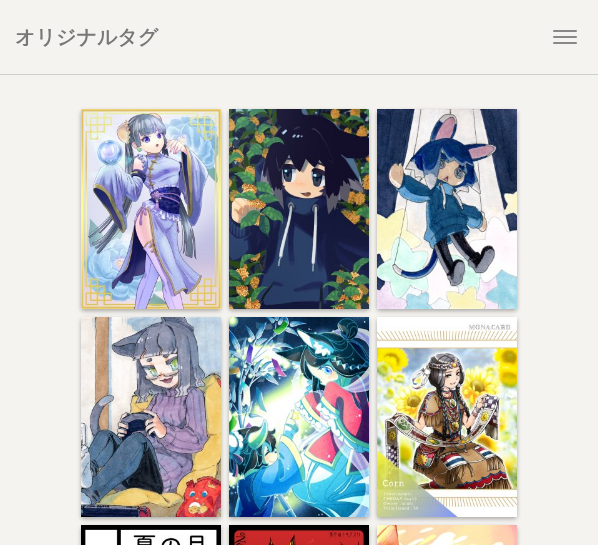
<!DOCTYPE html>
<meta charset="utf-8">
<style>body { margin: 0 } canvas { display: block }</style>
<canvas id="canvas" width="598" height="545"></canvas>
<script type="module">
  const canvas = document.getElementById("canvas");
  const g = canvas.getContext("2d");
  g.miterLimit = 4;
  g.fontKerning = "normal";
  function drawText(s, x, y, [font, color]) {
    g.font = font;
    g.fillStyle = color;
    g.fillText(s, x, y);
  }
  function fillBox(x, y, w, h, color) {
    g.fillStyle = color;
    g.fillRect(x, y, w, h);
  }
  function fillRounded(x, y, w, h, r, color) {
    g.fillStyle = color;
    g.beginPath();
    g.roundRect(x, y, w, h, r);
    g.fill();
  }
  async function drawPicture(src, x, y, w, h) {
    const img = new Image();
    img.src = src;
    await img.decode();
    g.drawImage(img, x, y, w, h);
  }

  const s1 = ["bold 20px WenQuanYi Zen Hei", "#777777"];

  fillBox(0, 0, 598, 545, "#F4F3EF");
  fillBox(0, 74, 598, 1, "#CFCFCA");
  drawText("オリジナルタグ", 15, 44, s1);
  fillRounded(553, 30, 24, 2, 1, "#888888");
  fillRounded(553, 36, 24, 2, 1, "#888888");
  fillRounded(553, 42, 24, 2, 1, "#888888");
  g.fillStyle = "rgba(0, 0, 0, 0.3)";
  g.filter = "blur(2px)";
  g.beginPath();
  g.roundRect(81, 111, 140, 200, 3);
  g.fill();
  g.filter = "none";
  await drawPicture("pic1.png", 81, 109, 140, 200);
  g.filter = "blur(2px)";
  g.beginPath();
  g.roundRect(229, 111, 140, 200, 3);
  g.fill();
  g.filter = "none";
  await drawPicture("pic2.png", 229, 109, 140, 200);
  g.filter = "blur(2px)";
  g.beginPath();
  g.roundRect(377, 111, 140, 200, 3);
  g.fill();
  g.filter = "none";
  await drawPicture("pic3.png", 377, 109, 140, 200);
  g.filter = "blur(2px)";
  g.beginPath();
  g.roundRect(81, 319, 140, 200, 3);
  g.fill();
  g.filter = "none";
  await drawPicture("pic4.png", 81, 317, 140, 200);
  g.filter = "blur(2px)";
  g.beginPath();
  g.roundRect(229, 319, 140, 200, 3);
  g.fill();
  g.filter = "none";
  await drawPicture("pic5.png", 229, 317, 140, 200);
  g.filter = "blur(2px)";
  g.beginPath();
  g.roundRect(377, 319, 140, 200, 3);
  g.fill();
  g.filter = "none";
  fillBox(377, 317, 140, 5, "#FFFFFF");
  await drawPicture("pic6.png", 377, 322, 140, 195);
  g.fillStyle = "rgba(0, 0, 0, 0.3)";
  g.filter = "blur(2px)";
  g.beginPath();
  g.roundRect(81, 527, 140, 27, 3);
  g.fill();
  g.filter = "none";
  await drawPicture("pic7.png", 81, 525, 140, 20);
  g.filter = "blur(2px)";
  g.beginPath();
  g.roundRect(229, 527, 140, 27, 3);
  g.fill();
  g.filter = "none";
  await drawPicture("pic8.png", 229, 525, 140, 20);
  g.filter = "blur(2px)";
  g.beginPath();
  g.roundRect(377, 527, 140, 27, 3);
  g.fill();
  g.filter = "none";
  await drawPicture("pic9.png", 377, 525, 140, 20);
</script>
